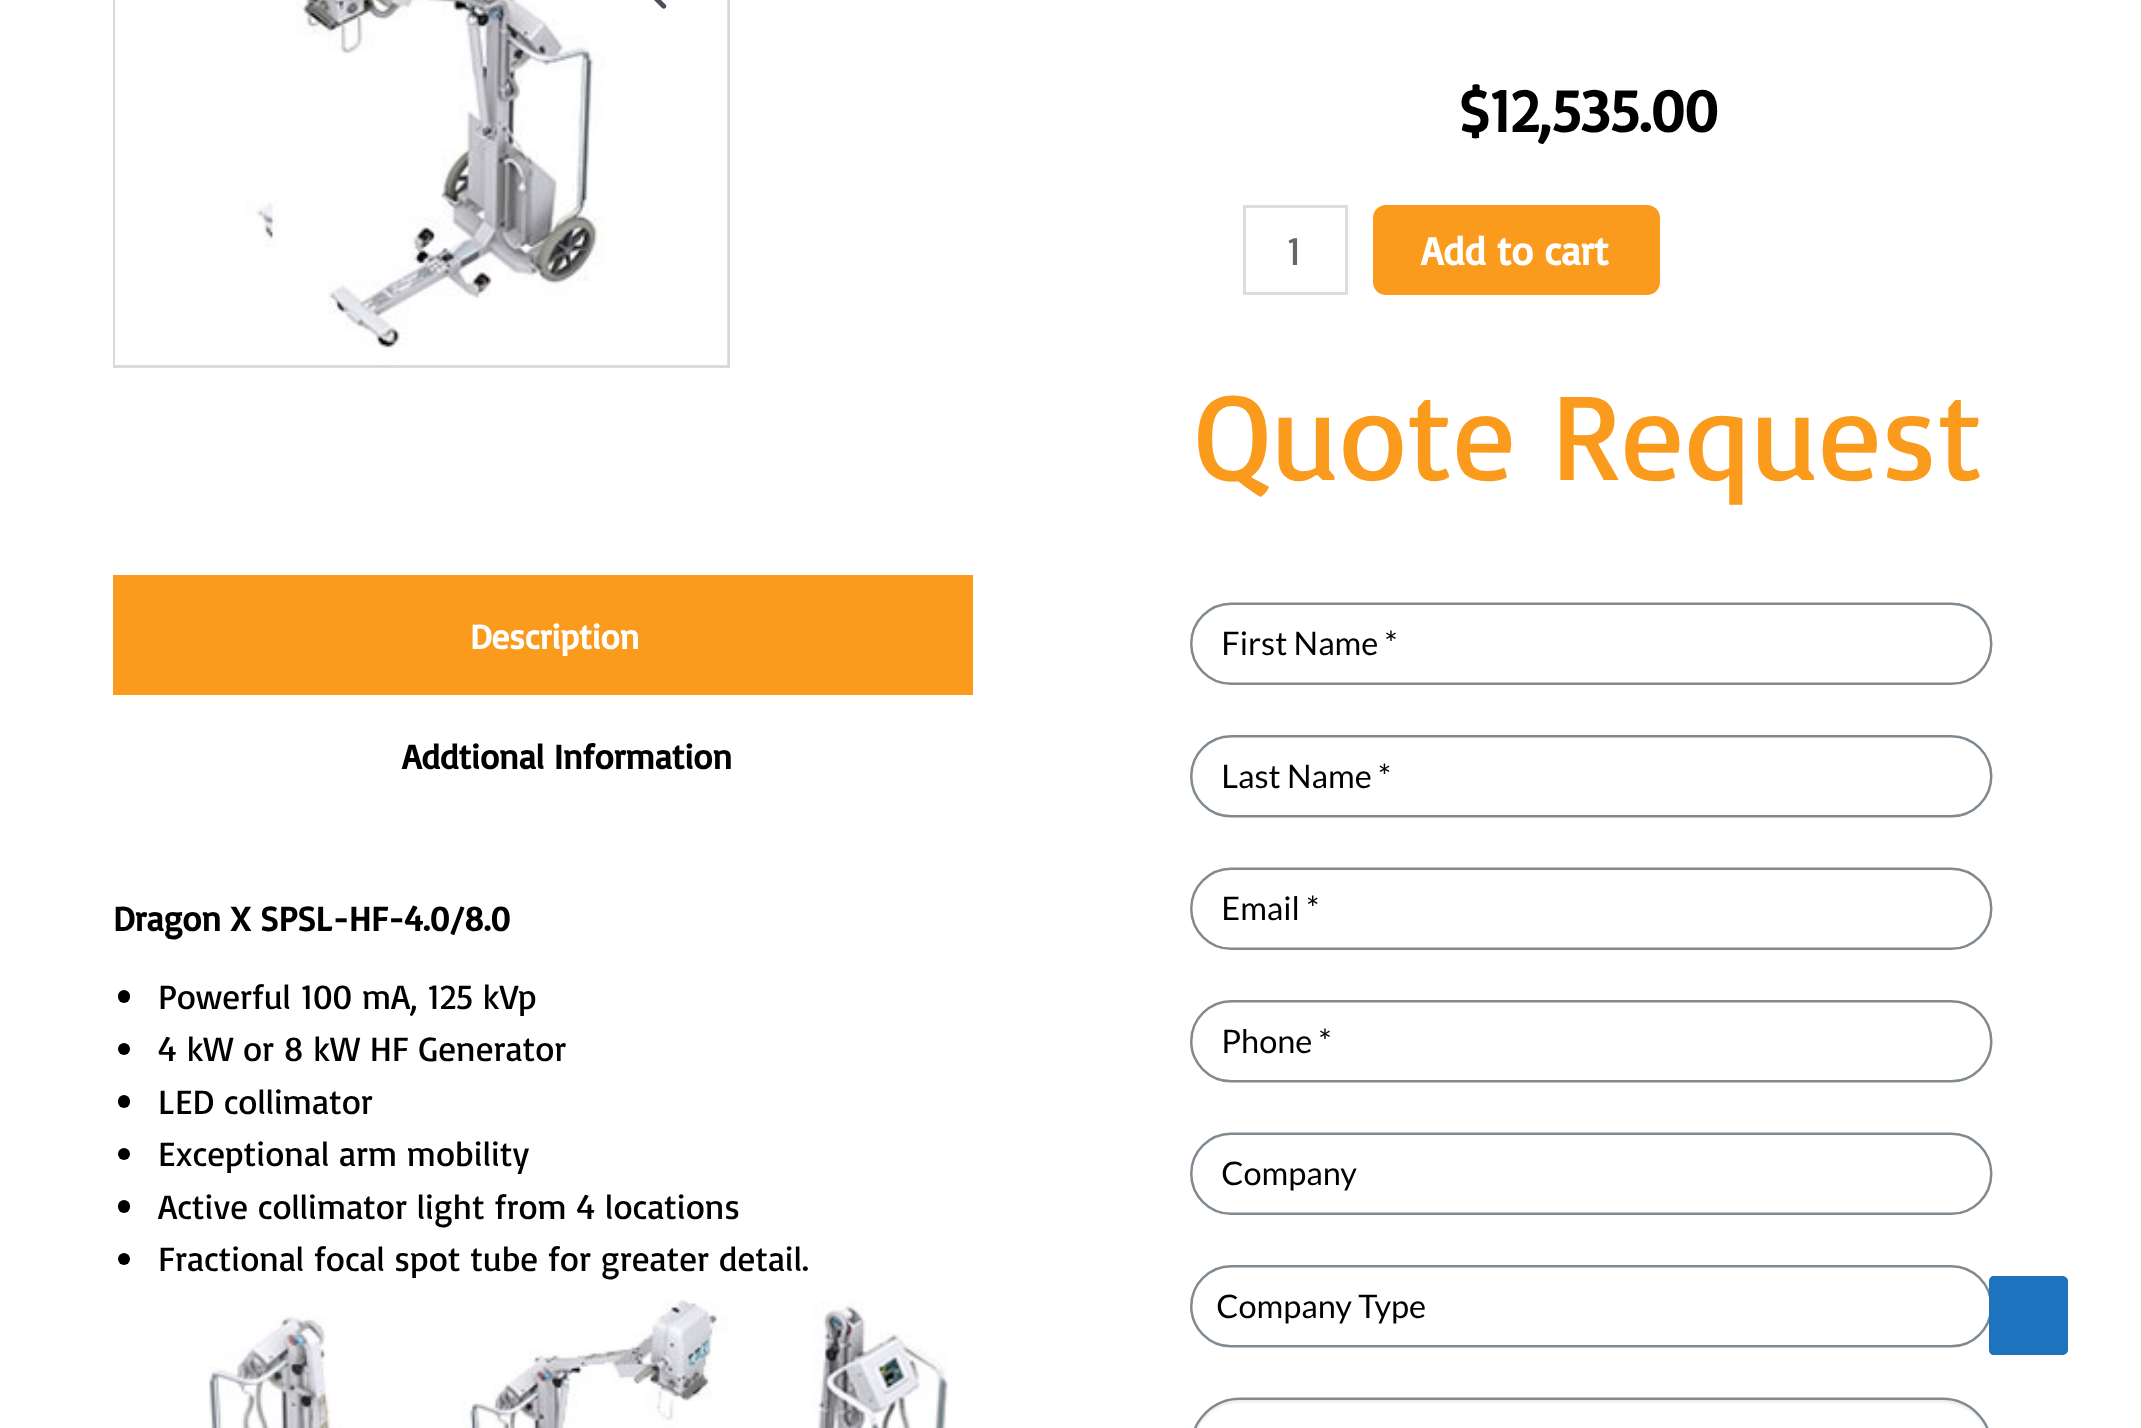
<!DOCTYPE html>
<meta charset="utf-8">
<style>body { margin: 0 } canvas { display: block }</style>
<canvas id="canvas" width="2141" height="1428"></canvas>
<script type="module">
  const canvas = document.getElementById("canvas");
  const g = canvas.getContext("2d");
  g.miterLimit = 4;
  g.fontKerning = "normal";
  function drawText(s, x, y, [font, color]) {
    g.font = font;
    g.fillStyle = color;
    g.fillText(s, x, y);
  }
  function fillBox(x, y, w, h, color) {
    g.fillStyle = color;
    g.fillRect(x, y, w, h);
  }
  function fillRounded(x, y, w, h, r, color) {
    g.fillStyle = color;
    g.beginPath();
    g.roundRect(x, y, w, h, r);
    g.fill();
  }
  async function drawPicture(src, x, y, w, h) {
    const img = new Image();
    img.src = src;
    await img.decode();
    g.drawImage(img, x, y, w, h);
  }

  const s1 = ["bold 60px Basic", "#000000"];
  const s2 = ["40px Basic", "#666666"];
  const s3 = ["bold 40px Basic", "#FFFFFF"];
  const s4 = ["125px Basic", "#FB9B1E"];
  const s5 = ["bold 35px Basic", "#FFFFFF"];
  const s6 = ["bold 35px Basic", "#000000"];
  const s7 = ["35px Basic", "#000000"];

  fillBox(0, 0, 2141, 1428, "#FFFFFF");
  drawText("$12,535.00", 1458, 132, s1);
  g.strokeStyle = "#DDDDDD";
  g.lineWidth = 3;
  g.strokeRect(1244.5, 206.5, 102, 87);
  drawText("1", 1287, 265, s2);
  fillRounded(1373, 205, 287, 90, 13, "#FB9B1E");
  drawText("Add to cart", 1421, 265, s3);
  drawText("Quote Request", 1193, 480, s4);
  await drawPicture("pic1.png", 1190, 602, 803, 826);
  g.strokeStyle = "#DADADA";
  g.strokeRect(114.5, -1.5, 614, 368);
  await drawPicture("pic2.png", 115, 0, 613, 365);
  g.fillStyle = "#4B4F58";
  g.beginPath();
  g.moveTo(651.5, -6);
  g.bezierCurveTo(652.5, -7, 654, -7, 655, -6);
  g.lineTo(665.5, 4.5);
  g.bezierCurveTo(666.5, 5.5, 666.5, 7, 665.5, 8);
  g.bezierCurveTo(664.5, 9, 663, 9, 662, 8);
  g.lineTo(651.5, -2.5);
  g.bezierCurveTo(650.5, -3.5, 650.5, -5, 651.5, -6);
  g.closePath();
  g.fill();
  fillBox(113, 575, 860, 120, "#FB9B1E");
  drawText("Description", 470, 649, s5);
  drawText("Addtional Information", 402, 769, s6);
  drawText("Dragon X SPSL-HF-4.0/8.0", 113, 931, s6);
  fillRounded(118, 990, 12, 13, 6, "#000000");
  drawText("Powerful 100 mA, 125 kVp", 158, 1009, s7);
  g.beginPath();
  g.arc(124, 1049, 6, 0, Math.PI * 2);
  g.fill();
  drawText("4 kW or 8 kW HF Generator", 158, 1061, s7);
  fillRounded(118, 1095, 12, 13, 6, "#000000");
  drawText("LED collimator", 158, 1114, s7);
  g.beginPath();
  g.arc(124, 1154, 6, 0, Math.PI * 2);
  g.fill();
  drawText("Exceptional arm mobility", 158, 1166, s7);
  fillRounded(118, 1200, 12, 13, 6, "#000000");
  drawText("Active collimator light from 4 locations", 158, 1219, s7);
  g.beginPath();
  g.arc(124, 1259, 6, 0, Math.PI * 2);
  g.fill();
  drawText("Fractional focal spot tube for greater detail.", 158, 1271, s7);
  await drawPicture("pic3.png", 208, 1299, 740, 129);
  g.fillStyle = "#1E73BE";
  g.beginPath();
  g.moveTo(2062, 1355);
  g.lineTo(1994, 1355);
  g.bezierCurveTo(1991, 1355, 1989, 1353, 1989, 1350);
  g.lineTo(1989, 1281);
  g.bezierCurveTo(1989, 1278, 1991, 1276, 1994, 1276);
  g.lineTo(2062, 1276);
  g.bezierCurveTo(2065, 1276, 2068, 1278, 2068, 1281);
  g.lineTo(2068, 1350);
  g.bezierCurveTo(2068, 1353, 2065, 1355, 2062, 1355);
  g.closePath();
  g.fill();
</script>
